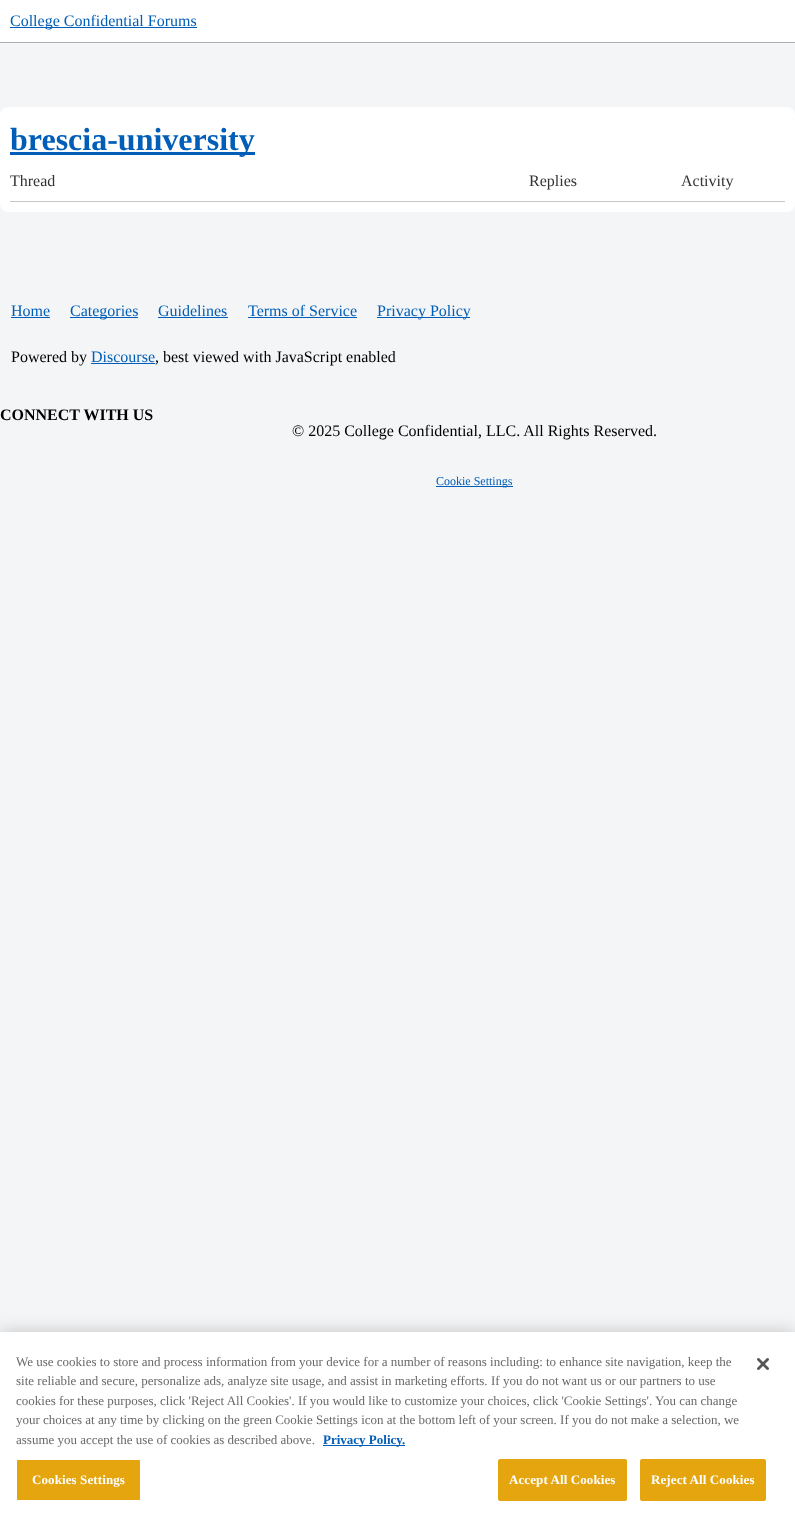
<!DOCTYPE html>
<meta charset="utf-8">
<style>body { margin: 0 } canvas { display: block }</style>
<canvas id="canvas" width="795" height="1521"></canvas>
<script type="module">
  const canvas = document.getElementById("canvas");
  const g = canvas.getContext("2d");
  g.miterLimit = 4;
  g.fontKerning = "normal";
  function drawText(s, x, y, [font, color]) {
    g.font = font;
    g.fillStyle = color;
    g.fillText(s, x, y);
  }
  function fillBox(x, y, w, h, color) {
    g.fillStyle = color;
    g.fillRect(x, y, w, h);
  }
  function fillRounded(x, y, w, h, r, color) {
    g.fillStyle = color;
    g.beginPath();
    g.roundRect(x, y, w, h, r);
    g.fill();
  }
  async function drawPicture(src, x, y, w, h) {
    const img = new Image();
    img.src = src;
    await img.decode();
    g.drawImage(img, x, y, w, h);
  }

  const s1 = ["16px Liberation Serif", "#005EB8"];
  const s2 = ["bold 32px Liberation Serif", "#005EB8"];
  const s3 = ["16px Liberation Serif", "#333333"];
  const s4 = ["16px Liberation Serif", "#000000"];
  const s5 = ["bold 16px Liberation Serif", "#000000"];
  const s6 = ["12px Liberation Serif", "#005EB8"];
  const s7 = ["13px Liberation Serif", "#696969"];
  const s8 = ["bold 13px Liberation Serif", "#005EB8"];
  const s9 = ["bold 13px Liberation Serif", "#FFFFFF"];

  fillBox(0, 0, 795, 1521, "#F4F5F6");
  fillBox(0, 0, 795, 42, "#FFFFFF");
  fillBox(0, 42, 795, 1, "#AFAFAF");
  fillBox(10, 27, 187, 1, "#005EB8");
  drawText("College Confidential Forums", 10, 26, s1);
  fillRounded(0, 107, 795, 105, 8, "#FFFFFF");
  fillBox(10, 152, 245, 3, "#005EB8");
  drawText("brescia-university", 10, 150, s2);
  fillBox(10, 201, 775, 1, "#C5C5C9");
  drawText("Thread", 10, 186, s3);
  drawText("Replies", 529, 186, s3);
  drawText("Activity", 681, 186, s3);
  drawText("Home", 11, 316, s1);
  fillBox(11, 317, 39, 1, "#005EB8");
  fillBox(70, 317, 68, 1, "#005EB8");
  drawText("Categories", 70, 316, s1);
  drawText("Guidelines", 158, 316, s1);
  fillBox(158, 317, 70, 1, "#005EB8");
  drawText("Terms of Service", 248, 316, s1);
  fillBox(248, 317, 109, 1, "#005EB8");
  fillBox(377, 317, 93, 1, "#005EB8");
  drawText("Privacy Policy", 377, 316, s1);
  drawText("Powered by", 11, 362, s4);
  drawText("Discourse", 91, 362, s1);
  fillBox(91, 363, 64, 1, "#005EB8");
  drawText(", best viewed with JavaScript enabled", 155, 362, s4);
  drawText("CONNECT WITH US", 0, 420, s5);
  drawText("© 2025 College Confidential, LLC. All Rights Reserved.", 292, 436, s4);
  fillBox(436, 486, 77, 1, "#005EB8");
  drawText("Cookie Settings", 436, 485, s6);
  g.fillStyle = "rgba(0, 0, 0, 0.2)";
  g.filter = "blur(9px)";
  g.beginPath();
  g.rect(0, 1332, 795, 189);
  g.fill();
  g.filter = "none";
  fillBox(0, 1332, 795, 189, "#FFFFFF");
  drawText("We use cookies to store and process information from your device for a number of reasons including: to enhance site navigation, keep the", 16, 1366, s7);
  drawText("site reliable and secure, personalize ads, analyze site usage, and assist in marketing efforts.", 16, 1385, s7);
  drawText("If you do not want us or our partners to use", 491, 1385, s7);
  drawText("cookies for these purposes, click 'Reject All Cookies'. If you would like to customize your choices, click 'Cookie Settings'. You can change", 16, 1405, s7);
  drawText("your choices at any time by clicking on the green Cookie Settings icon at the bottom left of your screen. If you do not make a selection, we", 16, 1424, s7);
  drawText("assume you accept the use of cookies as described above.", 16, 1444, s7);
  fillBox(323, 1445, 82, 1, "#005EB8");
  drawText("Privacy Policy.", 323, 1444, s8);
  g.fillStyle = "#E4A50F";
  g.beginPath();
  g.roundRect(16.5, 1459.5, 124, 41, 1.5);
  g.fill();
  g.strokeStyle = "#FFFFFF";
  g.stroke();
  g.letterSpacing = "0.1px";
  drawText("Cookies Settings", 32, 1484, s9);
  g.fillStyle = "#E4A50F";
  g.beginPath();
  g.roundRect(498.5, 1459.5, 128, 41, 1.5);
  g.fill();
  g.strokeStyle = "#E4A50F";
  g.stroke();
  drawText("Accept All Cookies", 509, 1484, s9);
  g.fillStyle = "#E4A50F";
  g.beginPath();
  g.roundRect(640.5, 1459.5, 125, 41, 1.5);
  g.fill();
  g.stroke();
  drawText("Reject All Cookies", 651, 1484, s9);
  await drawPicture("pic1.png", 757, 1358, 12, 12);
</script>
